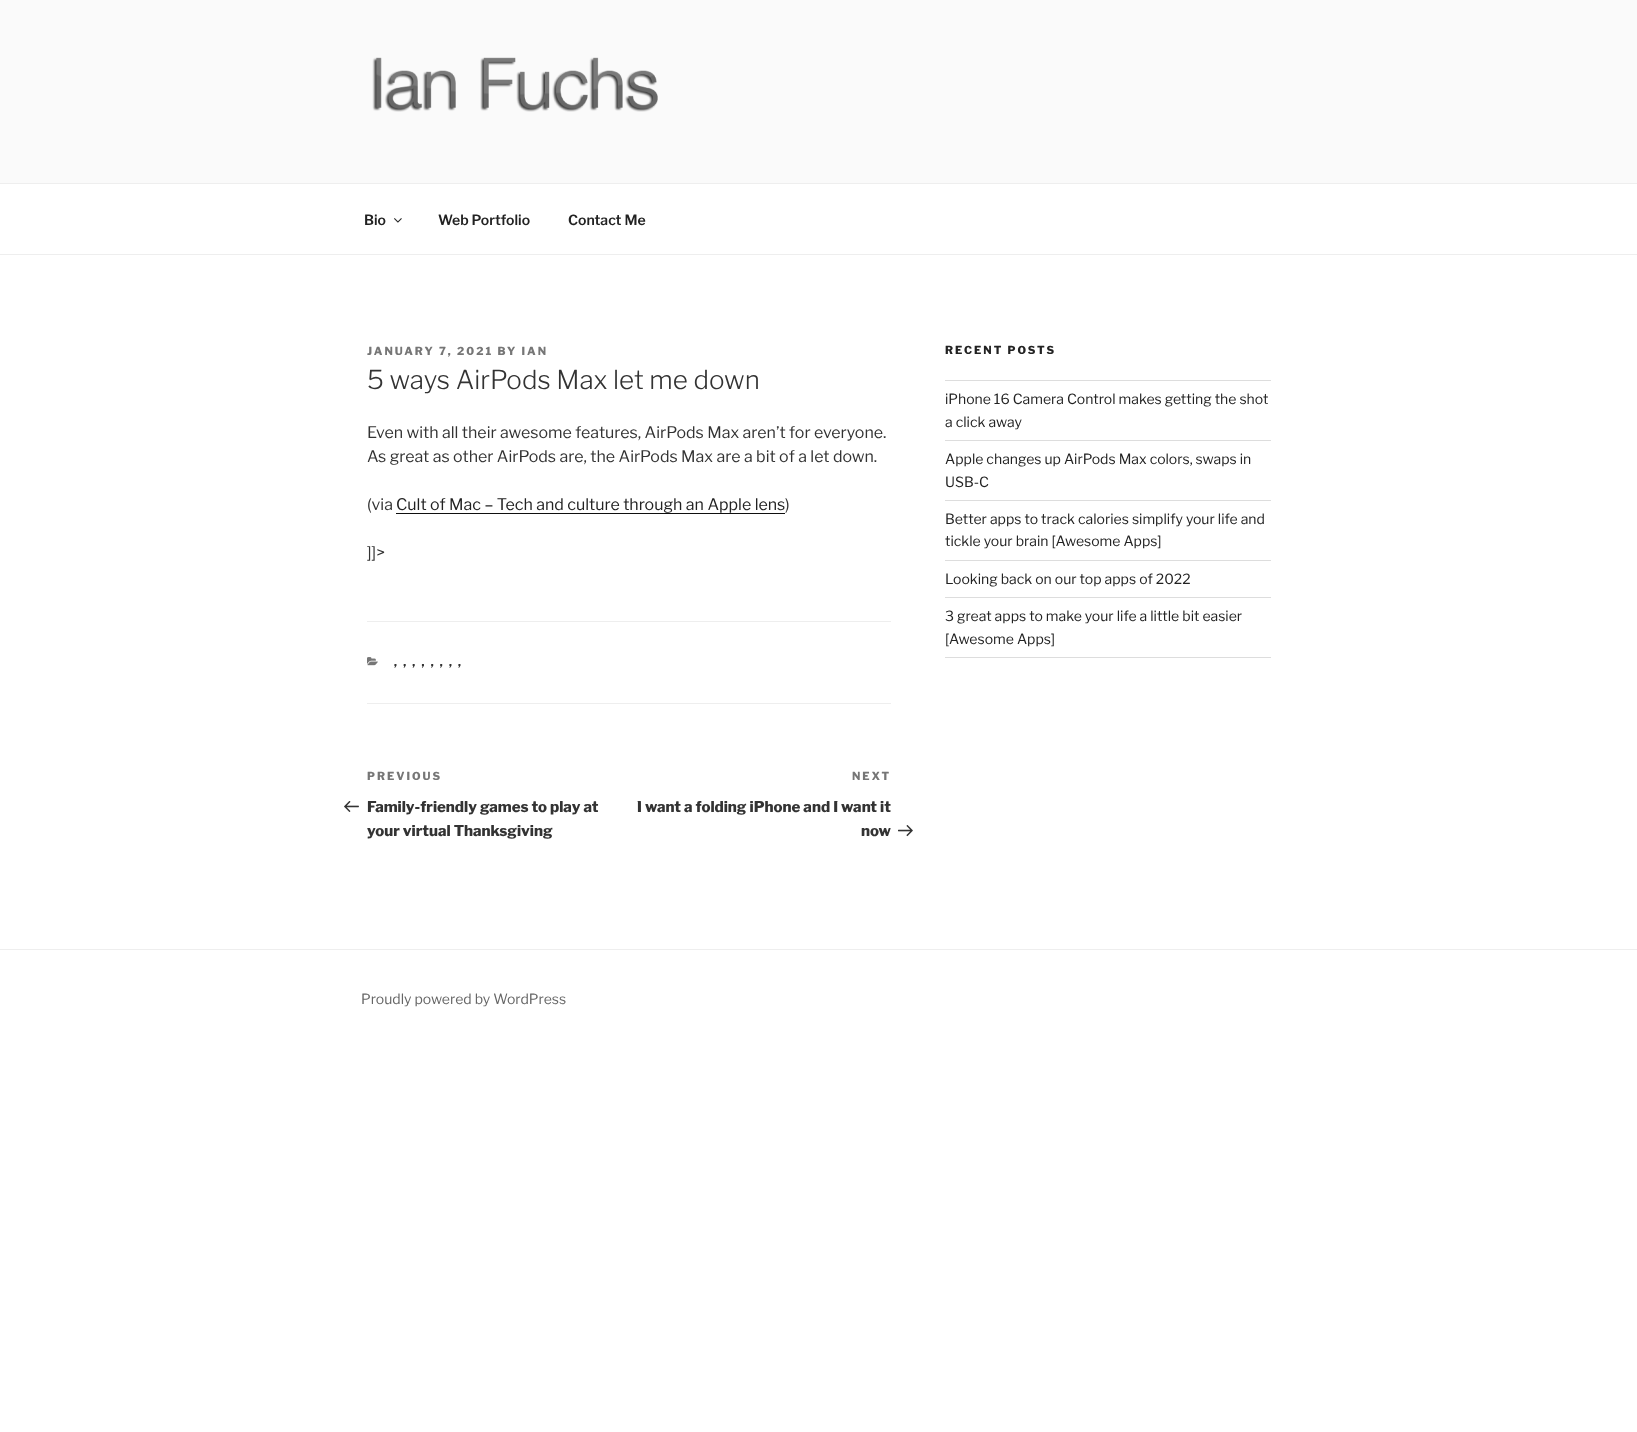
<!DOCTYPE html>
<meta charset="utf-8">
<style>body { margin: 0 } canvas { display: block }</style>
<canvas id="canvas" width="1637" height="1432"></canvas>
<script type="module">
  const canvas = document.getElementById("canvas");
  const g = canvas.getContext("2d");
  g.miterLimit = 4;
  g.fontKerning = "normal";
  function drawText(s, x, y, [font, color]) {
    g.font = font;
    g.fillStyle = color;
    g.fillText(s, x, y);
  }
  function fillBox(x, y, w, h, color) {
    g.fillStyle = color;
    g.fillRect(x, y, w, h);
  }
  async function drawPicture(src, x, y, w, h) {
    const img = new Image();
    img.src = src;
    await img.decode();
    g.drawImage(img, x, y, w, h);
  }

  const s1 = ["600 14px Libre Franklin", "#222222"];
  const s2 = ["800 11px Libre Franklin", "#767676"];
  const s3 = ["300 26px Libre Franklin", "#333333"];
  const s4 = ["16px Libre Franklin", "#333333"];
  const s5 = ["16px Libre Franklin", "#222222"];
  const s6 = ["800 11px Libre Franklin", "#333333"];
  const s7 = ["800 15px Libre Franklin", "#333333"];
  const s8 = ["800 11px Libre Franklin", "#222222"];
  const s9 = ["14px Libre Franklin", "#222222"];
  const s10 = ["14px Libre Franklin", "#666666"];

  fillBox(0, 0, 1637, 1432, "#FFFFFF");
  fillBox(0, 0, 1637, 183, "#FAFAFA");
  await drawPicture("pic1.png", 372, 57, 286, 55);
  fillBox(0, 183, 1637, 1, "#EEEEEE");
  fillBox(0, 254, 1637, 1, "#EEEEEE");
  drawText("Bio", 364, 225, s1);
  await drawPicture("pic2.png", 394, 218, 8, 5);
  drawText("Web Portfolio", 438, 225, s1);
  drawText("Contact Me", 568, 225, s1);
  g.letterSpacing = "2px";
  drawText("JANUARY 7, 2021 BY IAN", 367, 355, s2);
  g.letterSpacing = "0px";
  drawText("5 ways AirPods Max let me down", 367, 389, s3);
  drawText("Even with all their awesome features, AirPods Max aren’t for everyone.", 367, 438, s4);
  drawText("As great as other AirPods are, the AirPods Max are a bit of a let down.", 367, 462, s4);
  drawText("(via", 367, 510, s4);
  drawText("Cult of Mac – Tech and culture through an Apple lens", 396, 510, s5);
  fillBox(396, 513, 389, 1, "#0F0F0F");
  drawText(")", 785, 510, s4);
  drawText("]]>", 367, 558, s4);
  fillBox(367, 621, 524, 1, "#EEEEEE");
  fillBox(367, 703, 524, 1, "#EEEEEE");
  await drawPicture("pic3.png", 367, 657, 11, 9);
  g.letterSpacing = "2px";
  drawText(", , , , , , , ,", 394, 666, s6);
  drawText("PREVIOUS", 367, 780, s2);
  await drawPicture("pic4.png", 344, 801, 15, 11);
  g.letterSpacing = "0px";
  drawText("Family-friendly games to play at", 367, 812, s7);
  drawText("your virtual Thanksgiving", 367, 836, s7);
  g.letterSpacing = "2px";
  drawText("NEXT", 852, 780, s2);
  g.letterSpacing = "0px";
  drawText("I want a folding iPhone and I want it", 637, 812, s7);
  drawText("now", 861, 836, s7);
  await drawPicture("pic5.png", 898, 825, 15, 12);
  g.letterSpacing = "2px";
  drawText("RECENT POSTS", 945, 354, s8);
  fillBox(945, 380, 326, 1, "#DDDDDD");
  fillBox(945, 440, 326, 1, "#DDDDDD");
  g.letterSpacing = "0px";
  drawText("iPhone 16 Camera Control makes getting the shot", 945, 404, s9);
  drawText("a click away", 945, 427, s9);
  fillBox(945, 500, 326, 1, "#DDDDDD");
  drawText("Apple changes up AirPods Max colors, swaps in", 945, 464, s9);
  drawText("USB-C", 945, 487, s9);
  fillBox(945, 560, 326, 1, "#DDDDDD");
  drawText("Better apps to track calories simplify your life and", 945, 524, s9);
  drawText("tickle your brain [Awesome Apps]", 945, 546, s9);
  fillBox(945, 597, 326, 1, "#DDDDDD");
  drawText("Looking back on our top apps of 2022", 945, 584, s9);
  fillBox(945, 657, 326, 1, "#DDDDDD");
  drawText("3 great apps to make your life a little bit easier", 945, 621, s9);
  drawText("[Awesome Apps]", 945, 644, s9);
  fillBox(0, 949, 1637, 1, "#EEEEEE");
  drawText("Proudly powered by WordPress", 361, 1004, s10);
</script>
